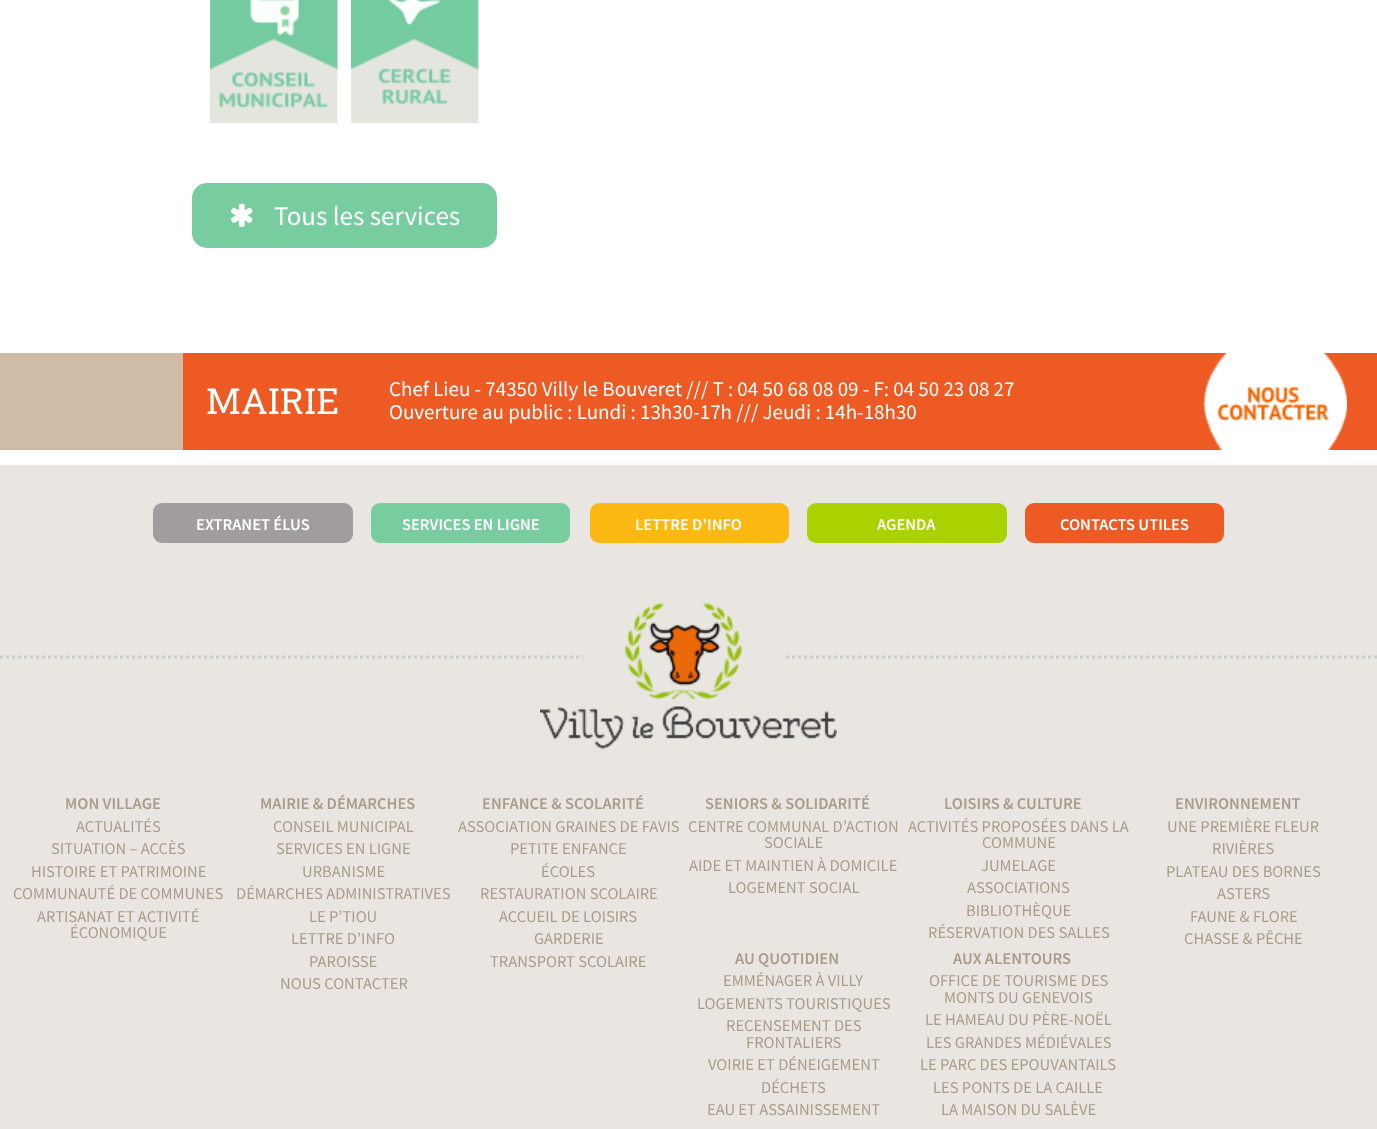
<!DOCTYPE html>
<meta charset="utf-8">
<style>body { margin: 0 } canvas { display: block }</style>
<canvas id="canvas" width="1377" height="1129"></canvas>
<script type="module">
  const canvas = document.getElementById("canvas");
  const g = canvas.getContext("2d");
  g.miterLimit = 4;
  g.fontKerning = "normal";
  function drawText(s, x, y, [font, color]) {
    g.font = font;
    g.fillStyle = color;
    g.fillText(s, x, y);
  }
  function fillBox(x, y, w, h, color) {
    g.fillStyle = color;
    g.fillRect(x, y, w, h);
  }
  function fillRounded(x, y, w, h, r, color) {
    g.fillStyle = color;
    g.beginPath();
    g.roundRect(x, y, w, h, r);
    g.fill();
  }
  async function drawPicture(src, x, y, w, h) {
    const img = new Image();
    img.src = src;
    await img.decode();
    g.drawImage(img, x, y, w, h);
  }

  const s1 = ["27px Source Sans Pro", "#FFFFFF"];
  const s2 = ["36px Roboto Slab", "#FFFFFF"];
  const s3 = ["21px Source Sans Pro", "#FFFFFF"];
  const s4 = ["600 16.5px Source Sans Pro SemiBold", "#FFFFFF"];
  const s5 = ["600 16.5px Source Sans Pro SemiBold", "#A99C8A"];
  const s6 = ["16.5px Source Sans Pro", "#A99C8A"];

  fillBox(0, 0, 1377, 1129, "#E9E6E1");
  fillBox(0, 0, 1377, 353, "#FFFFFF");
  await drawPicture("pic1.png", 210, 0, 128, 123);
  await drawPicture("pic2.png", 351, 0, 128, 123);
  fillRounded(192, 183, 305, 65, 15, "#78CDA0");
  await drawPicture("pic3.png", 231, 203, 22, 24);
  drawText("Tous les services", 274, 225, s1);
  fillBox(0, 353, 183, 97, "#D0BCA6");
  fillBox(0, 450, 1377, 15, "#FFFFFF");
  fillBox(183, 353, 1194, 97, "#EE5A23");
  drawText("MAIRIE", 206, 414, s2);
  drawText("Chef Lieu - 74350 Villy le Bouveret /// T : 04 50 68 08 09 - F: 04 50 23 08 27", 389, 396, s3);
  drawText("Ouverture au public : Lundi : 13h30-17h /// Jeudi : 14h-18h30", 389, 419, s3);
  await drawPicture("pic4.png", 1203, 353, 144, 97);
  fillRounded(153, 503, 200, 40, 9, "#A09C9F");
  drawText("EXTRANET ÉLUS", 196, 530, s4);
  fillRounded(371, 503, 199, 40, 9, "#78CDA0");
  drawText("SERVICES EN LIGNE", 402, 530, s4);
  fillRounded(590, 503, 199, 40, 9, "#FDB812");
  drawText("LETTRE D'INFO", 635, 530, s4);
  fillRounded(807, 503, 200, 40, 9, "#AAD200");
  drawText("AGENDA", 877, 530, s4);
  fillRounded(1025, 503, 199, 40, 9, "#EE5A23");
  drawText("CONTACTS UTILES", 1060, 530, s4);
  g.beginPath();
  g.moveTo(0, 657);
  g.lineTo(1377, 657);
  g.strokeStyle = "#CCCCCC";
  g.lineWidth = 3;
  g.setLineDash([3, 3]);
  g.stroke();
  await drawPicture("pic5.png", 540, 602, 297, 147);
  drawText("MON VILLAGE", 65, 809, s5);
  drawText("ACTUALITÉS", 76, 832, s6);
  drawText("SITUATION – ACCÈS", 51, 854, s6);
  drawText("HISTOIRE ET PATRIMOINE", 31, 877, s6);
  drawText("COMMUNAUTÉ DE COMMUNES", 13, 899, s6);
  drawText("ARTISANAT ET ACTIVITÉ", 37, 922, s6);
  drawText("ÉCONOMIQUE", 70, 938, s6);
  drawText("MAIRIE & DÉMARCHES", 260, 809, s5);
  drawText("CONSEIL MUNICIPAL", 273, 832, s6);
  drawText("SERVICES EN LIGNE", 276, 854, s6);
  drawText("URBANISME", 302, 877, s6);
  drawText("DÉMARCHES ADMINISTRATIVES", 236, 899, s6);
  drawText("LE P’TIOU", 309, 922, s6);
  drawText("LETTRE D’INFO", 291, 944, s6);
  drawText("PAROISSE", 309, 967, s6);
  drawText("NOUS CONTACTER", 280, 989, s6);
  drawText("ENFANCE & SCOLARITÉ", 482, 809, s5);
  drawText("ASSOCIATION GRAINES DE FAVIS", 458, 832, s6);
  drawText("PETITE ENFANCE", 510, 854, s6);
  drawText("ÉCOLES", 541, 877, s6);
  drawText("RESTAURATION SCOLAIRE", 480, 899, s6);
  drawText("ACCUEIL DE LOISIRS", 499, 922, s6);
  drawText("GARDERIE", 534, 944, s6);
  drawText("TRANSPORT SCOLAIRE", 490, 967, s6);
  drawText("SENIORS & SOLIDARITÉ", 705, 809, s5);
  drawText("CENTRE COMMUNAL D’ACTION", 688, 832, s6);
  drawText("SOCIALE", 764, 848, s6);
  drawText("AIDE ET MAINTIEN À DOMICILE", 689, 871, s6);
  drawText("LOGEMENT SOCIAL", 728, 893, s6);
  drawText("LOISIRS & CULTURE", 944, 809, s5);
  drawText("ACTIVITÉS PROPOSÉES DANS LA", 908, 832, s6);
  drawText("COMMUNE", 982, 848, s6);
  drawText("JUMELAGE", 981, 871, s6);
  drawText("ASSOCIATIONS", 967, 893, s6);
  drawText("BIBLIOTHÈQUE", 966, 916, s6);
  drawText("RÉSERVATION DES SALLES", 928, 938, s6);
  drawText("ENVIRONNEMENT", 1175, 809, s5);
  drawText("UNE PREMIÈRE FLEUR", 1167, 832, s6);
  drawText("RIVIÈRES", 1212, 854, s6);
  drawText("PLATEAU DES BORNES", 1166, 877, s6);
  drawText("ASTERS", 1217, 899, s6);
  drawText("FAUNE & FLORE", 1190, 922, s6);
  drawText("CHASSE & PÊCHE", 1184, 944, s6);
  drawText("AU QUOTIDIEN", 735, 964, s5);
  drawText("EMMÉNAGER À VILLY", 723, 986, s6);
  drawText("LOGEMENTS TOURISTIQUES", 697, 1009, s6);
  drawText("RECENSEMENT DES", 726, 1031, s6);
  drawText("FRONTALIERS", 746, 1048, s6);
  drawText("VOIRIE ET DÉNEIGEMENT", 708, 1070, s6);
  drawText("DÉCHETS", 761, 1093, s6);
  drawText("EAU ET ASSAINISSEMENT", 707, 1115, s6);
  drawText("AUX ALENTOURS", 953, 964, s5);
  drawText("OFFICE DE TOURISME DES", 929, 986, s6);
  drawText("MONTS DU GENEVOIS", 944, 1003, s6);
  drawText("LE HAMEAU DU PÈRE-NOËL", 925, 1025, s6);
  drawText("LES GRANDES MÉDIÉVALES", 926, 1048, s6);
  drawText("LE PARC DES EPOUVANTAILS", 920, 1070, s6);
  drawText("LES PONTS DE LA CAILLE", 933, 1093, s6);
  drawText("LA MAISON DU SALÈVE", 941, 1115, s6);
</script>
